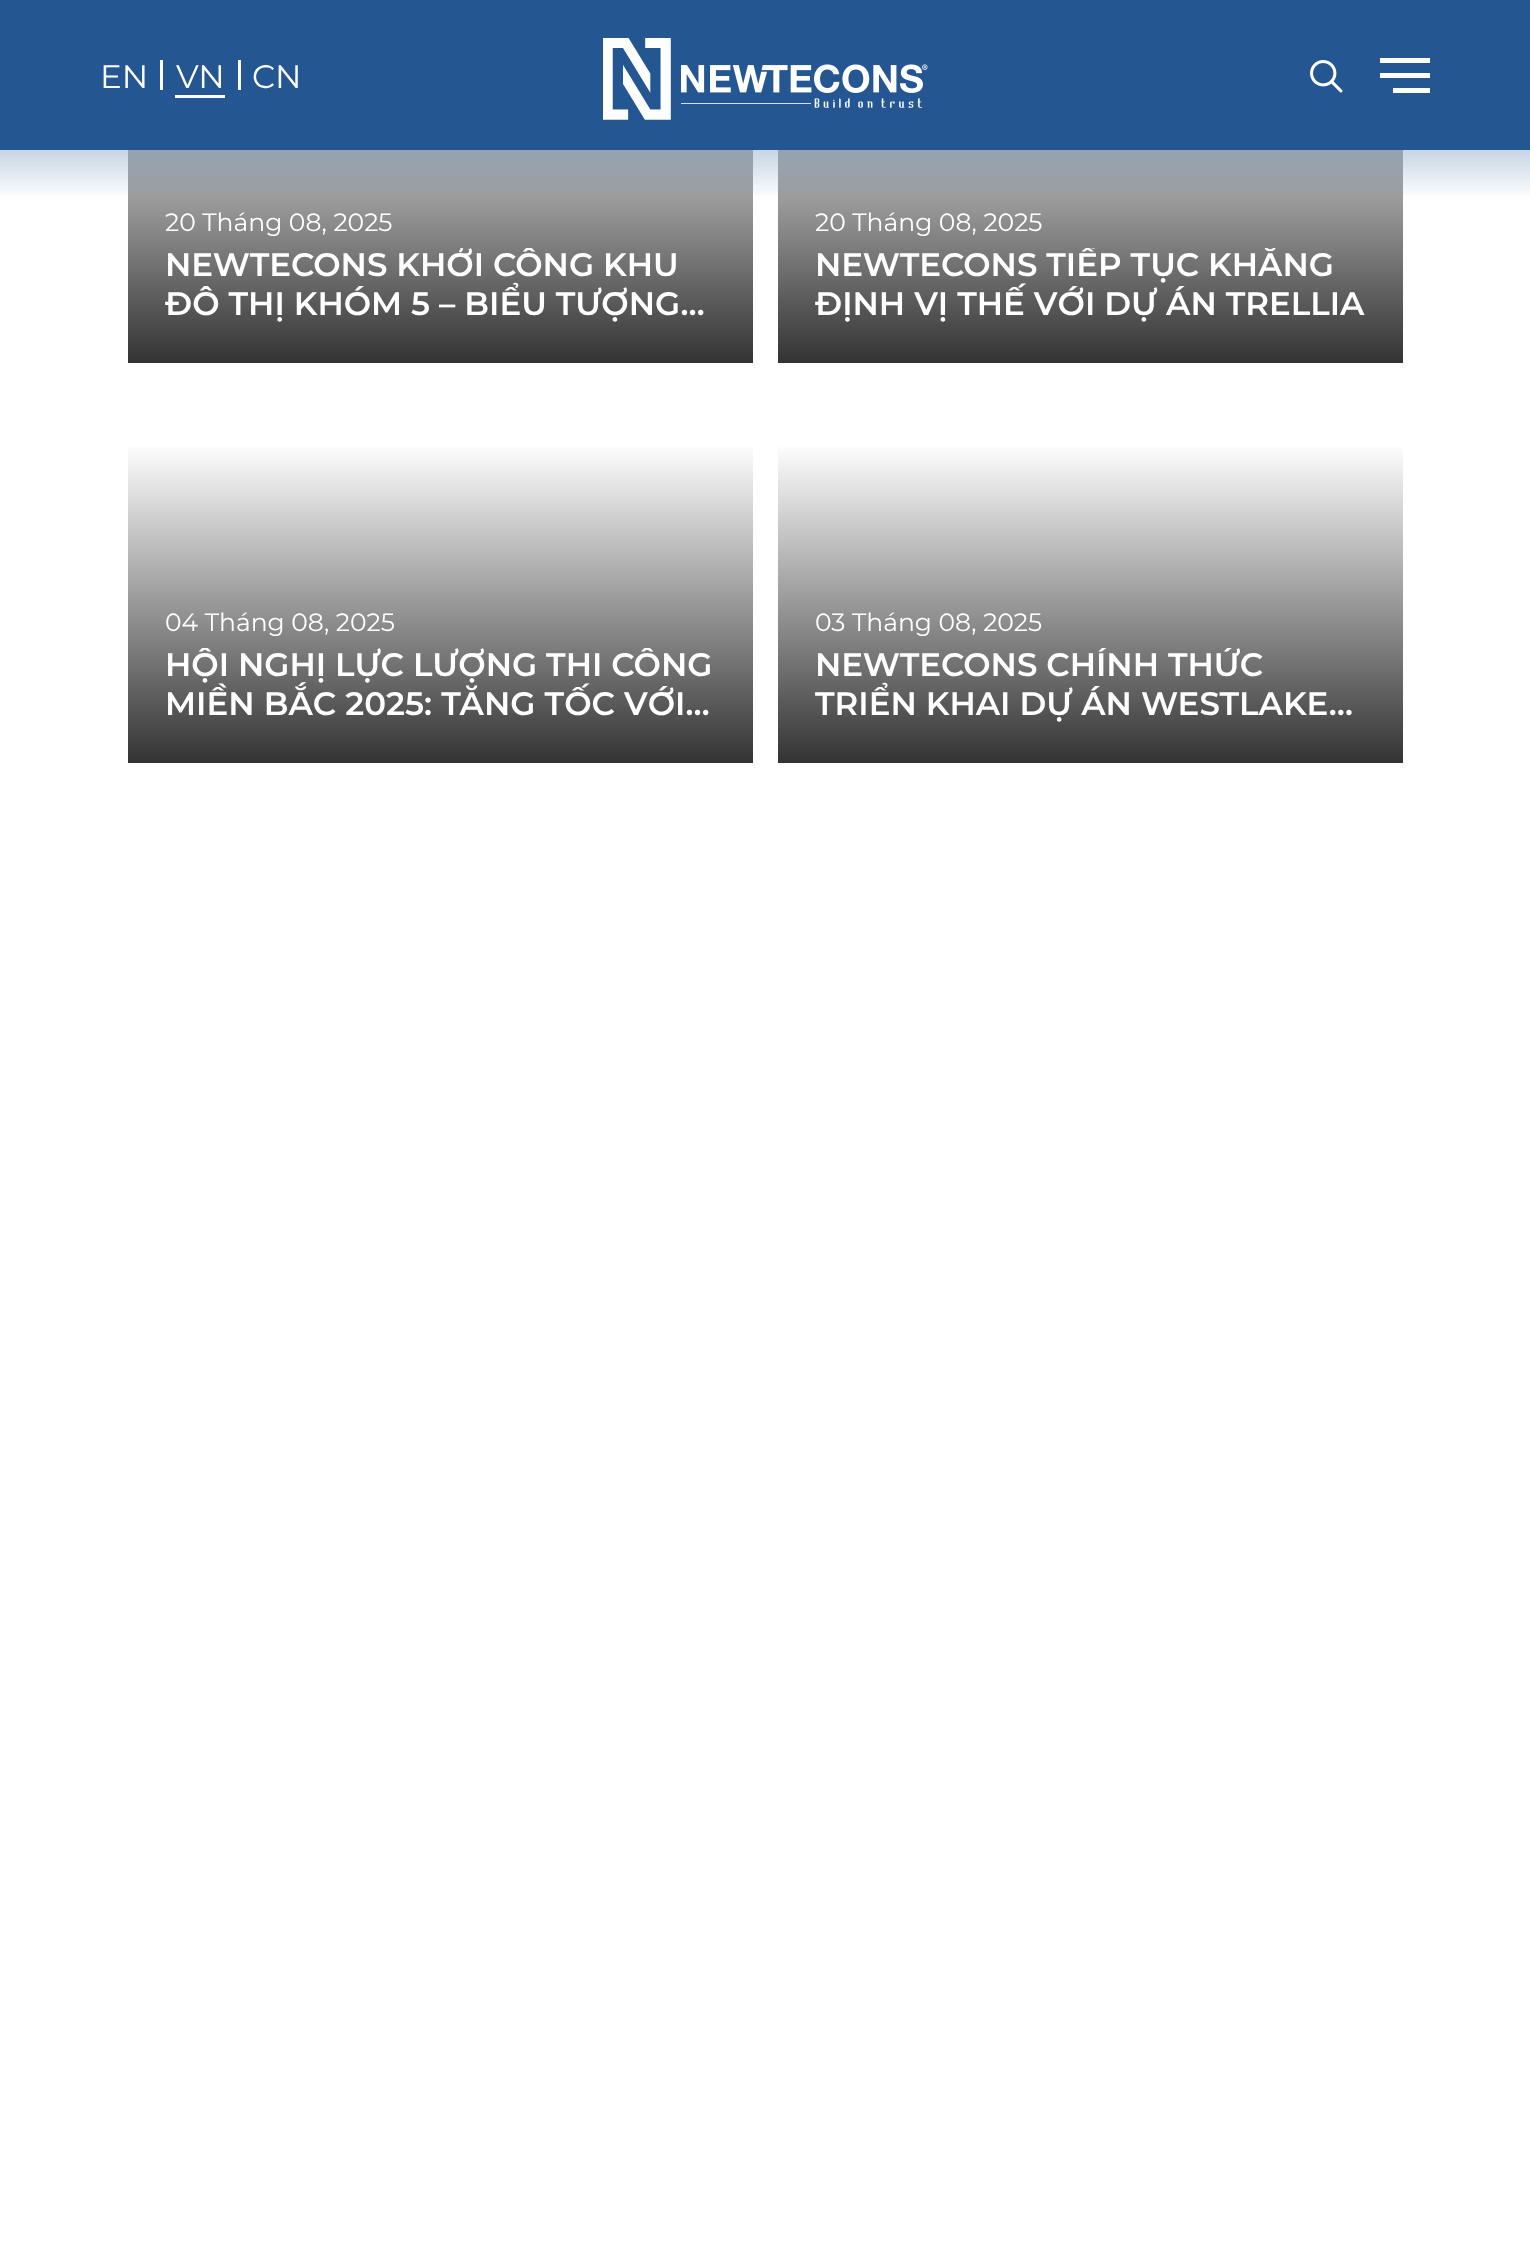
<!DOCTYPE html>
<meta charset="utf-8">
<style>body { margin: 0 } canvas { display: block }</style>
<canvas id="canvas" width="1530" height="2261"></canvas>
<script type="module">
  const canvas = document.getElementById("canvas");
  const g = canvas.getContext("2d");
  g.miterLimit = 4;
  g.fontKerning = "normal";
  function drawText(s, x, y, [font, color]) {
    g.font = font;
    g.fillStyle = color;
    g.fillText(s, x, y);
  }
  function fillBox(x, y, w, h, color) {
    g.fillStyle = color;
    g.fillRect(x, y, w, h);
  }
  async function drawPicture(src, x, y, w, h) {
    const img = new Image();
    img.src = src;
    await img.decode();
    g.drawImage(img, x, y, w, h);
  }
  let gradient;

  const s1 = ["32.5px Montserrat", "#FFFFFF"];
  const s2 = ["25px Montserrat", "#FFFFFF"];
  const s3 = ["600 32.5px Montserrat", "#FFFFFF"];

  fillBox(0, 0, 1530, 2261, "#FFFFFF");
  fillBox(0, 1, 1530, 149, "#235792");
  gradient = g.createLinearGradient(440, 363, 440, 43);
  gradient.addColorStop(0, "#333333");
  gradient.addColorStop(1, "#FFFFFF");
  g.fillStyle = gradient;
  g.fillRect(128, 150, 625, 213);
  gradient = g.createLinearGradient(1090, 363, 1090, 43);
  gradient.addColorStop(0, "#333333");
  gradient.addColorStop(1, "#FFFFFF");
  g.fillStyle = gradient;
  g.fillRect(778, 150, 625, 213);
  gradient = g.createLinearGradient(765, 0, 765, 200);
  gradient.addColorStop(0, "#245692");
  gradient.addColorStop(1, "rgba(36, 86, 146, 0)");
  g.fillStyle = gradient;
  g.fillRect(0, 0, 1530, 196);
  fillBox(160, 60, 3, 30, "#FFFFFF");
  drawText("EN", 100, 88, s1);
  fillBox(238, 60, 3, 30, "#FFFFFF");
  drawText("VN", 176, 88, s1);
  fillBox(175, 95, 50, 3, "#FFFFFF");
  drawText("CN", 252, 88, s1);
  await drawPicture("pic1.png", 1310, 60, 33, 33);
  fillBox(1380, 58, 50, 5, "#FFFFFF");
  fillBox(1380, 73, 50, 5, "#FFFFFF");
  fillBox(1393, 88, 37, 5, "#FFFFFF");
  await drawPicture("pic2.png", 603, 38, 325, 82);
  drawText("20 Tháng 08, 2025", 165, 231, s2);
  g.save();
  g.beginPath();
  g.rect(165, 248, 550, 77);
  g.clip();
  drawText("NEWTECONS KHỞI CÔNG KHU", 165, 276, s3);
  g.restore();
  drawText("ĐÔ THỊ KHÓM 5 – BIỂU TƯỢNG…", 165, 315, s3);
  drawText("20 Tháng 08, 2025", 815, 231, s2);
  g.save();
  g.beginPath();
  g.rect(815, 248, 550, 77);
  g.clip();
  drawText("NEWTECONS TIẾP TỤC KHẲNG", 815, 276, s3);
  g.restore();
  drawText("ĐỊNH VỊ THẾ VỚI DỰ ÁN TRELLIA", 815, 315, s3);
  gradient = g.createLinearGradient(440, 763, 440, 443);
  gradient.addColorStop(0, "#333333");
  gradient.addColorStop(1, "#FFFFFF");
  g.fillStyle = gradient;
  g.fillRect(128, 447, 625, 316);
  drawText("04 Tháng 08, 2025", 165, 631, s2);
  g.save();
  g.beginPath();
  g.rect(165, 648, 550, 77);
  g.clip();
  drawText("HỘI NGHỊ LỰC LƯỢNG THI CÔNG", 165, 676, s3);
  g.restore();
  g.wordSpacing = "0.25px";
  drawText("MIỀN BẮC 2025: TĂNG TỐC VỚI…", 165, 715, s3);
  gradient = g.createLinearGradient(1090, 763, 1090, 443);
  gradient.addColorStop(0, "#333333");
  gradient.addColorStop(1, "#FFFFFF");
  g.fillStyle = gradient;
  g.fillRect(778, 447, 625, 316);
  g.wordSpacing = "0px";
  drawText("03 Tháng 08, 2025", 815, 631, s2);
  g.save();
  g.beginPath();
  g.rect(815, 648, 550, 77);
  g.clip();
  drawText("NEWTECONS CHÍNH THỨC", 815, 676, s3);
  g.restore();
  drawText("TRIỂN KHAI DỰ ÁN WESTLAKE…", 815, 715, s3);
</script>
